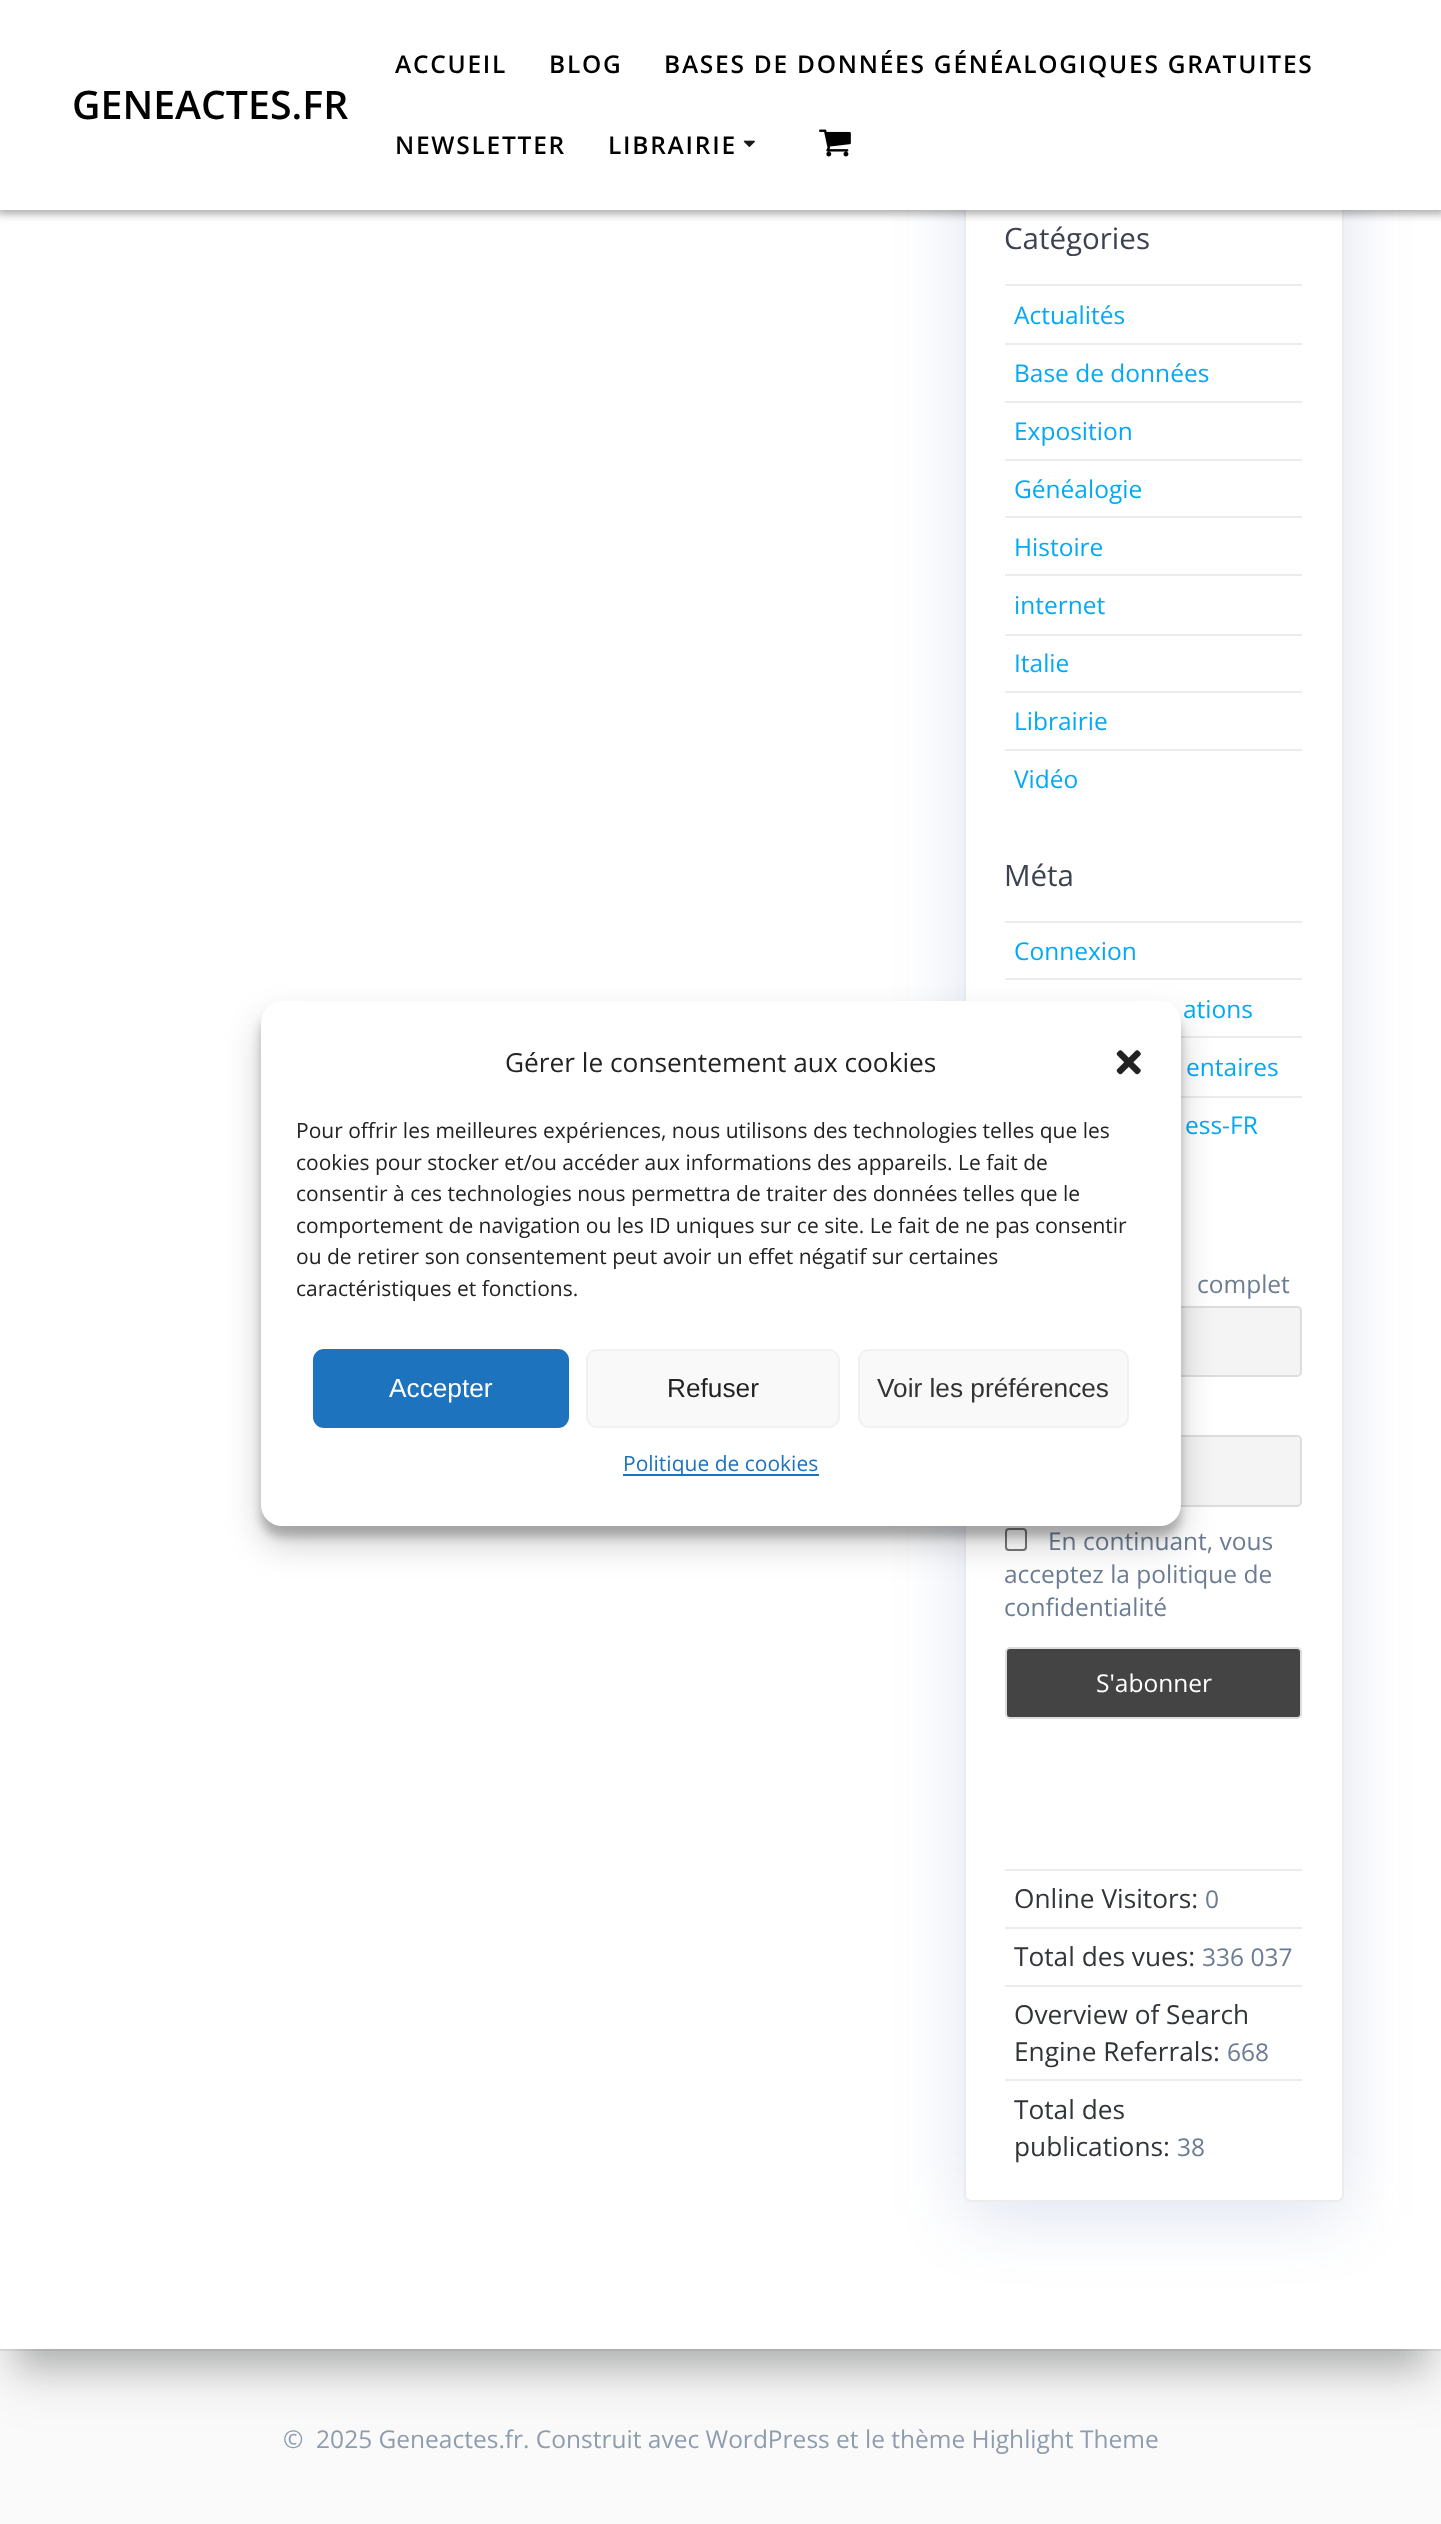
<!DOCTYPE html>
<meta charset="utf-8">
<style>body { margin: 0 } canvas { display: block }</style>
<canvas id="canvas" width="1441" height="2524"></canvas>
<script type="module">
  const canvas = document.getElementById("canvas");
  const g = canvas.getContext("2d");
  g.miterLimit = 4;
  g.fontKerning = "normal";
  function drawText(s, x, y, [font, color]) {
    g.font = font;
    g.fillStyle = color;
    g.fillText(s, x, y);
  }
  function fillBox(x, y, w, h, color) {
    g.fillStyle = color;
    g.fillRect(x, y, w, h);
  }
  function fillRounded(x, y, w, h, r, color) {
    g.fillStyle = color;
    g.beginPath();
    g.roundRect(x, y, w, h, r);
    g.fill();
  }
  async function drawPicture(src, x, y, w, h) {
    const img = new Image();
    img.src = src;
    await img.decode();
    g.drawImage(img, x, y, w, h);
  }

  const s1 = ["600 39.25px Open Sans", "#000000"];
  const s2 = ["600 24.5px Open Sans", "#000000"];
  const s3 = ["29.5px Open Sans", "#3C424F"];
  const s4 = ["24.5px Open Sans", "#03A9F4"];
  const s5 = ["24.5px Open Sans", "#6B7C93"];
  const s6 = ["24.5px Open Sans", "#FFFFFF"];
  const s7 = ["26.25px Open Sans", "#313439"];
  const s8 = ["24.5px Open Sans", "#8E9DAE"];
  const s9 = ["26.25px Open Sans", "#222222"];
  const s10 = ["21px Open Sans", "#222222"];
  const s11 = ["26.25px Liberation Sans", "#FFFFFF"];
  const s12 = ["26.25px Liberation Sans", "#222222"];
  const s13 = ["26.25px Liberation Sans", "#333333"];
  const s14 = ["21px Open Sans", "#1E73BE"];

  fillBox(0, 0, 1441, 2524, "#FAFAFA");
  fillBox(0, 2349, 1441, 2, "#E8E8E8");
  g.fillStyle = "rgba(0, 0, 0, 0.08)";
  g.filter = "blur(26px)";
  g.beginPath();
  g.rect(0, -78, 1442, 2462);
  g.fill();
  g.filter = "none";
  g.fillStyle = "rgba(49, 52, 57, 0.3)";
  g.filter = "blur(17.5px)";
  g.beginPath();
  g.rect(18, -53, 1407, 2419);
  g.fill();
  g.filter = "none";
  fillBox(0, 210, 1441, 2139, "#FFFFFF");
  g.fillStyle = "rgba(35, 69, 152, 0.15)";
  g.filter = "blur(34.5px)";
  g.beginPath();
  g.roundRect(964, -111, 380, 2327, 7);
  g.fill();
  g.filter = "none";
  g.fillStyle = "#FFFFFF";
  g.beginPath();
  g.roundRect(965, -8, 378, 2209, 6);
  g.fill();
  g.strokeStyle = "#ECECEC";
  g.lineWidth = 2;
  g.stroke();
  g.fillStyle = "rgba(0, 0, 0, 0.33)";
  g.filter = "blur(4.5px)";
  g.beginPath();
  g.rect(-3, -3, 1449, 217);
  g.fill();
  g.filter = "none";
  fillBox(0, 0, 1441, 210, "#FFFFFF");
  drawText("GENEACTES.FR", 72, 119, s1);
  g.letterSpacing = "1.75px";
  drawText("ACCUEIL", 395, 73, s2);
  drawText("BLOG", 549, 73, s2);
  drawText("BASES DE DONNÉES GÉNÉALOGIQUES GRATUITES", 664, 73, s2);
  drawText("NEWSLETTER", 395, 154, s2);
  drawText("LIBRAIRIE", 608, 154, s2);
  await drawPicture("pic1.png", 743, 140, 12, 7);
  await drawPicture("pic2.png", 819, 129, 32, 28);
  g.letterSpacing = "0px";
  drawText("Catégories", 1004, 249, s3);
  fillBox(1005, 284, 297, 2, "#ECECEC");
  drawText("Actualités", 1014, 324, s4);
  fillBox(1005, 343, 297, 2, "#ECECEC");
  drawText("Base de données", 1014, 382, s4);
  fillBox(1005, 401, 297, 2, "#ECECEC");
  drawText("Exposition", 1014, 440, s4);
  fillBox(1005, 459, 297, 2, "#ECECEC");
  drawText("Généalogie", 1014, 498, s4);
  fillBox(1005, 516, 297, 2, "#ECECEC");
  drawText("Histoire", 1014, 556, s4);
  fillBox(1005, 574, 297, 2, "#ECECEC");
  drawText("internet", 1014, 614, s4);
  fillBox(1005, 634, 297, 2, "#ECECEC");
  drawText("Italie", 1014, 672, s4);
  fillBox(1005, 691, 297, 2, "#ECECEC");
  drawText("Librairie", 1014, 730, s4);
  fillBox(1005, 749, 297, 2, "#ECECEC");
  drawText("Vidéo", 1014, 788, s4);
  drawText("Méta", 1004, 886, s3);
  fillBox(1005, 921, 297, 2, "#ECECEC");
  drawText("Connexion", 1014, 960, s4);
  fillBox(1005, 978, 297, 2, "#ECECEC");
  drawText("ations", 1183, 1018, s4);
  fillBox(1181, 1036, 121, 2, "#ECECEC");
  drawText("entaires", 1186, 1076, s4);
  fillBox(1181, 1096, 121, 2, "#ECECEC");
  drawText("ess-FR", 1185, 1134, s4);
  drawText("complet", 1197, 1293, s5);
  g.fillStyle = "#F4F4F4";
  g.beginPath();
  g.roundRect(1006, 1307, 295, 69, 4);
  g.fill();
  g.strokeStyle = "#DDDDDD";
  g.stroke();
  g.beginPath();
  g.roundRect(1006, 1436, 295, 70, 4);
  g.fill();
  g.stroke();
  g.beginPath();
  g.roundRect(1006, 1529, 20, 21, 3);
  g.strokeStyle = "#767676";
  g.stroke();
  drawText("En continuant, vous", 1048, 1550, s5);
  drawText("acceptez la politique de", 1004, 1583, s5);
  drawText("confidentialité", 1004, 1616, s5);
  g.fillStyle = "#444444";
  g.beginPath();
  g.roundRect(1006, 1648, 295, 70, 4);
  g.fill();
  g.strokeStyle = "#DDDDDD";
  g.stroke();
  drawText("S'abonner", 1096, 1692, s6);
  fillBox(1005, 1869, 297, 2, "#ECECEC");
  drawText("Online Visitors:", 1014, 1908, s7);
  drawText("0", 1205, 1908, s5);
  fillBox(1005, 1927, 297, 2, "#ECECEC");
  drawText("Total des vues:", 1014, 1966, s7);
  drawText("336 037", 1202, 1966, s5);
  fillBox(1005, 1985, 297, 2, "#ECECEC");
  drawText("Overview of Search", 1014, 2024, s7);
  drawText("Engine Referrals:", 1014, 2061, s7);
  drawText("668", 1227, 2061, s5);
  fillBox(1005, 2079, 297, 2, "#ECECEC");
  drawText("Total des", 1014, 2119, s7);
  drawText("publications:", 1014, 2156, s7);
  drawText("38", 1177, 2156, s5);
  drawText("©  2025 Geneactes.fr. Construit avec WordPress et le thème Highlight Theme", 283, 2448, s8);
  g.fillStyle = "rgba(0, 0, 0, 0.23)";
  g.filter = "blur(5px)";
  g.beginPath();
  g.roundRect(261, 1012, 920, 525, 21);
  g.fill();
  g.filter = "none";
  g.fillStyle = "rgba(0, 0, 0, 0.19)";
  g.filter = "blur(17.5px)";
  g.beginPath();
  g.roundRect(261, 1019, 920, 525, 21);
  g.fill();
  g.filter = "none";
  fillRounded(261, 1001, 920, 525, 21, "#FFFFFF");
  drawText("Gérer le consentement aux cookies", 505, 1072, s9);
  await drawPicture("pic3.png", 1116, 1050, 25, 25);
  drawText("Pour offrir les meilleures expériences, nous utilisons des technologies telles que les", 296, 1138, s10);
  drawText("cookies pour stocker et/ou accéder aux informations des appareils. Le fait de", 296, 1170, s10);
  drawText("consentir à ces technologies nous permettra de traiter des données telles que le", 296, 1201, s10);
  drawText("comportement de navigation ou les ID uniques sur ce site. Le fait de ne pas consentir", 296, 1233, s10);
  drawText("ou de retirer son consentement peut avoir un effet négatif sur certaines", 296, 1264, s10);
  drawText("caractéristiques et fonctions.", 296, 1296, s10);
  g.fillStyle = "#1E73BE";
  g.beginPath();
  g.roundRect(314, 1350, 254, 77, 10);
  g.fill();
  g.strokeStyle = "#1E73BE";
  g.stroke();
  drawText("Accepter", 389, 1397, s11);
  g.fillStyle = "#F9F9F9";
  g.beginPath();
  g.roundRect(587, 1350, 252, 77, 10);
  g.fill();
  g.strokeStyle = "#F2F2F2";
  g.stroke();
  drawText("Refuser", 667, 1397, s12);
  g.fillStyle = "#F9F9F9";
  g.beginPath();
  g.roundRect(859, 1350, 269, 77, 10);
  g.fill();
  g.stroke();
  drawText("Voir les préférences", 877, 1397, s13);
  fillBox(623, 1474, 196, 2, "#1E73BE");
  drawText("Politique de cookies", 623, 1471, s14);
</script>
